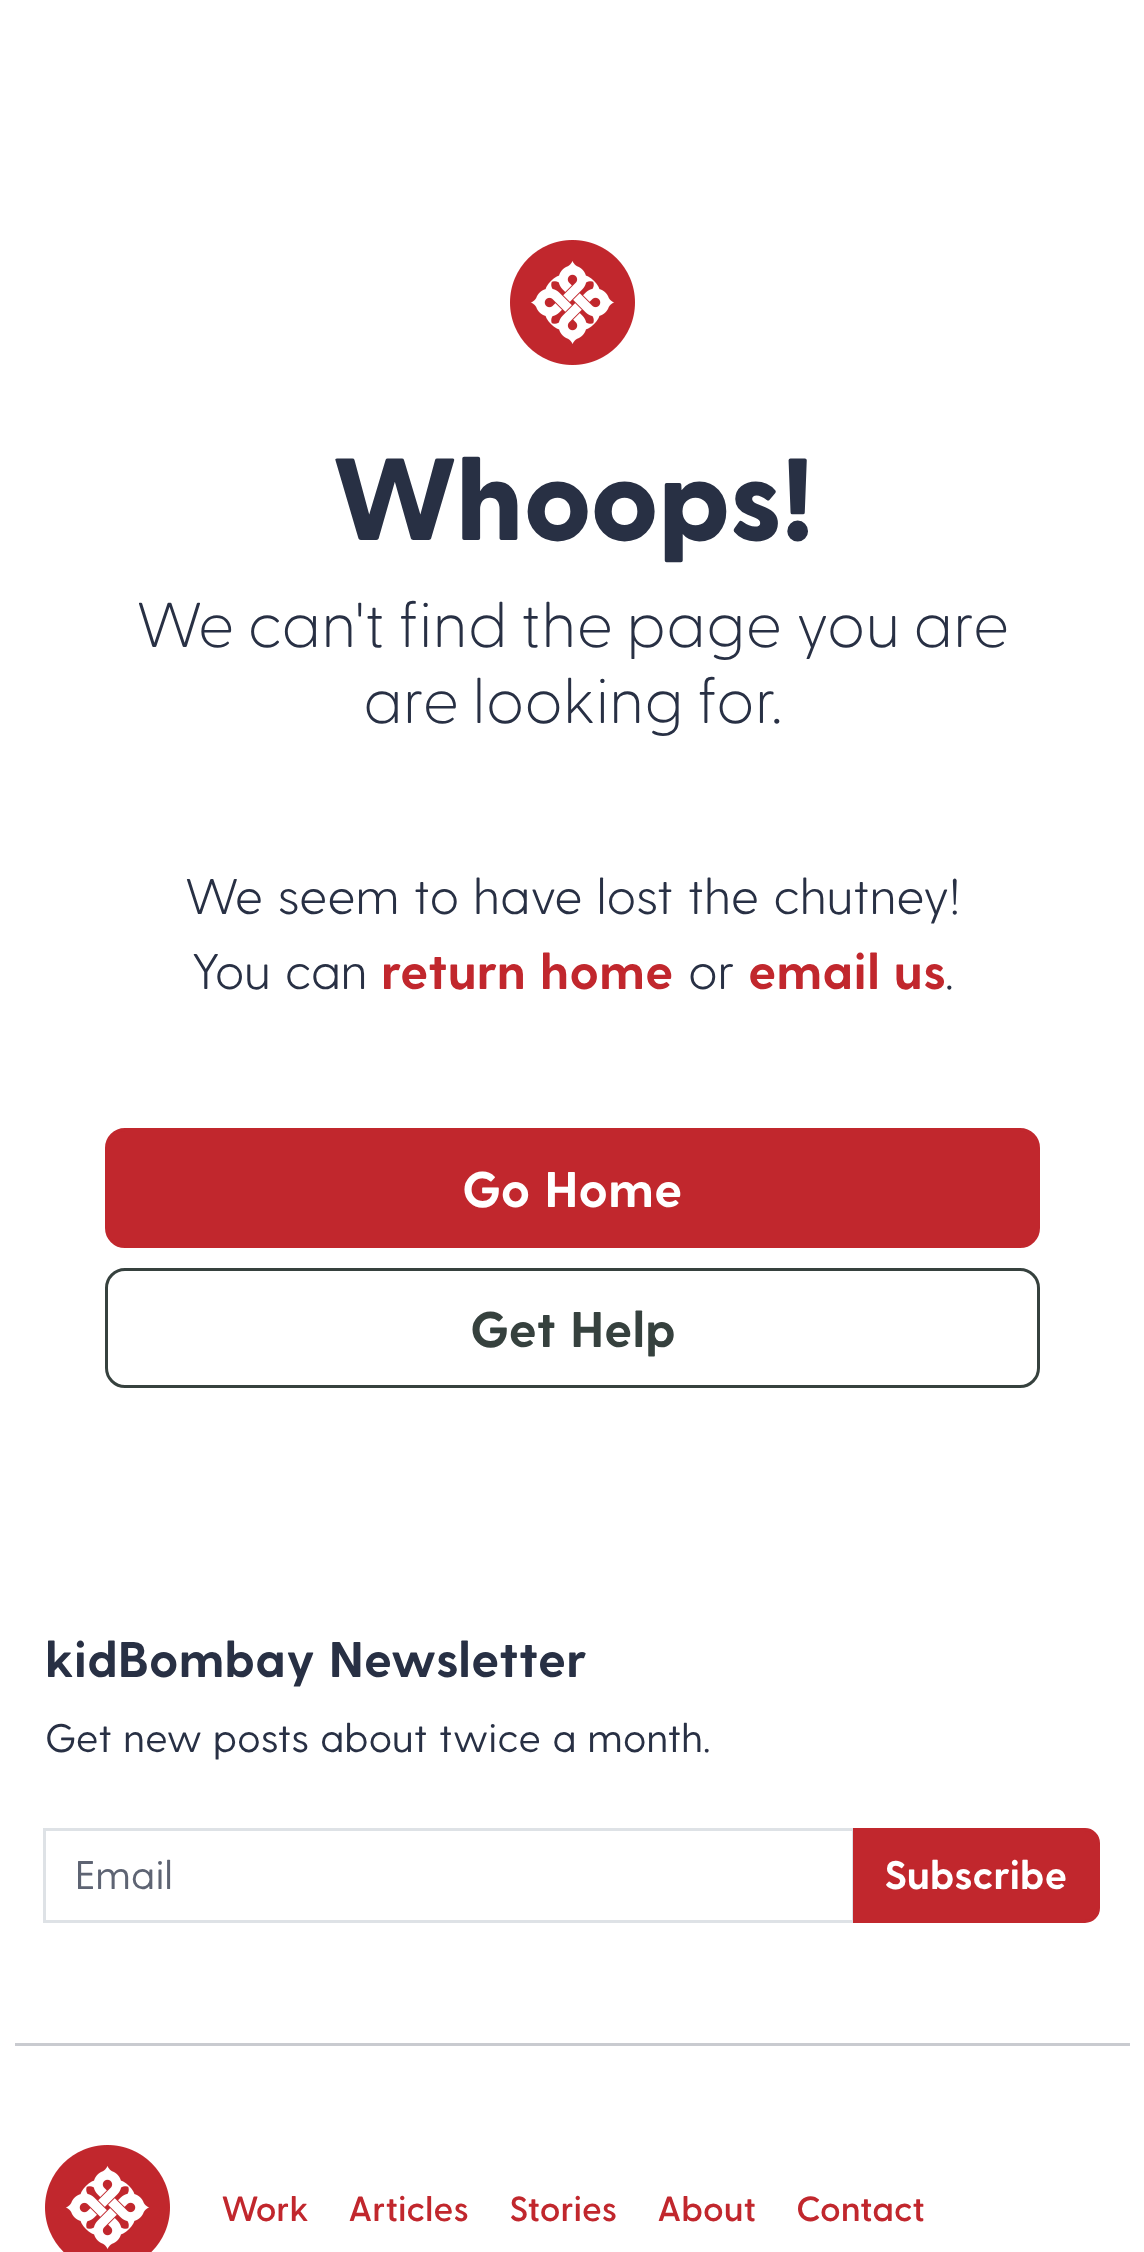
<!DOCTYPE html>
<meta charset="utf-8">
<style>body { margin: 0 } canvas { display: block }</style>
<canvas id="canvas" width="1144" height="2252"></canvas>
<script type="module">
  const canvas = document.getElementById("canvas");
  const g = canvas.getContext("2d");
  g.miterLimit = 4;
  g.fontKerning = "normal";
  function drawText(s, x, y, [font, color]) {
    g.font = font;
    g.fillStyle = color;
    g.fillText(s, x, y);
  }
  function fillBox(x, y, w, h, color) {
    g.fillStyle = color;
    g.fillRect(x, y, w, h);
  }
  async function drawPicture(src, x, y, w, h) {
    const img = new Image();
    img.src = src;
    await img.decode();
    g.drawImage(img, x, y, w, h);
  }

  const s1 = ["800 116.5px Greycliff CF", "#283044"];
  const s2 = ["200 63.25px Greycliff CF", "#283044"];
  const s3 = ["300 50px Greycliff CF", "#283044"];
  const s4 = ["bold 50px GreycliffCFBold", "#C1272D"];
  const s5 = ["bold 50px GreycliffCFBold", "#FFFFFF"];
  const s6 = ["bold 50px GreycliffCFBold", "#36413E"];
  const s7 = ["bold 50px GreycliffCFBold", "#283044"];
  const s8 = ["40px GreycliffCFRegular", "#283044"];
  const s9 = ["40px GreycliffCFRegular", "#5E6473"];
  const s10 = ["bold 40px GreycliffCFBold", "#FFFFFF"];
  const s11 = ["600 35px Greycliff CF", "#C1272D"];

  fillBox(0, 0, 1144, 2252, "#FFFFFF");
  await drawPicture("pic1.png", 510, 240, 125, 125);
  drawText("Whoops!", 331, 540, s1);
  drawText("We can't find the page you are", 135, 647, s2);
  drawText("are looking for.", 363, 723, s2);
  drawText("We seem to have lost the chutney!", 184, 914, s3);
  drawText("You can", 191, 989, s3);
  drawText("return home", 381, 989, s4);
  drawText("or", 688, 989, s3);
  drawText("email us", 748, 989, s4);
  drawText(".", 945, 989, s3);
  g.fillStyle = "#C1272D";
  g.beginPath();
  g.roundRect(106.5, 1129.5, 932, 117, 18.5);
  g.fill();
  g.strokeStyle = "#C1272D";
  g.lineWidth = 3;
  g.stroke();
  drawText("Go Home", 462, 1207, s5);
  g.beginPath();
  g.roundRect(106.5, 1269.5, 932, 117, 18.5);
  g.strokeStyle = "#36413E";
  g.stroke();
  drawText("Get Help", 470, 1347, s6);
  drawText("kidBombay Newsletter", 45, 1677, s7);
  drawText("Get new posts about twice a month.", 45, 1752, s8);
  g.strokeStyle = "#DEE2E6";
  g.strokeRect(44.5, 1829.5, 809, 92);
  drawText("Email", 75, 1889, s9);
  g.fillStyle = "#C1272D";
  g.beginPath();
  g.roundRect(854.5, 1829.5, 244, 92, [0, 13.5, 13.5, 0]);
  g.fill();
  g.strokeStyle = "#C1272D";
  g.stroke();
  drawText("Subscribe", 884, 1889, s10);
  fillBox(15, 2043, 1115, 3, "#C9CBD0");
  await drawPicture("pic2.png", 45, 2145, 125, 107);
  drawText("Work", 221, 2221, s11);
  drawText("Articles", 348, 2221, s11);
  drawText("Stories", 509, 2221, s11);
  drawText("About", 657, 2221, s11);
  drawText("Contact", 796, 2221, s11);
</script>
